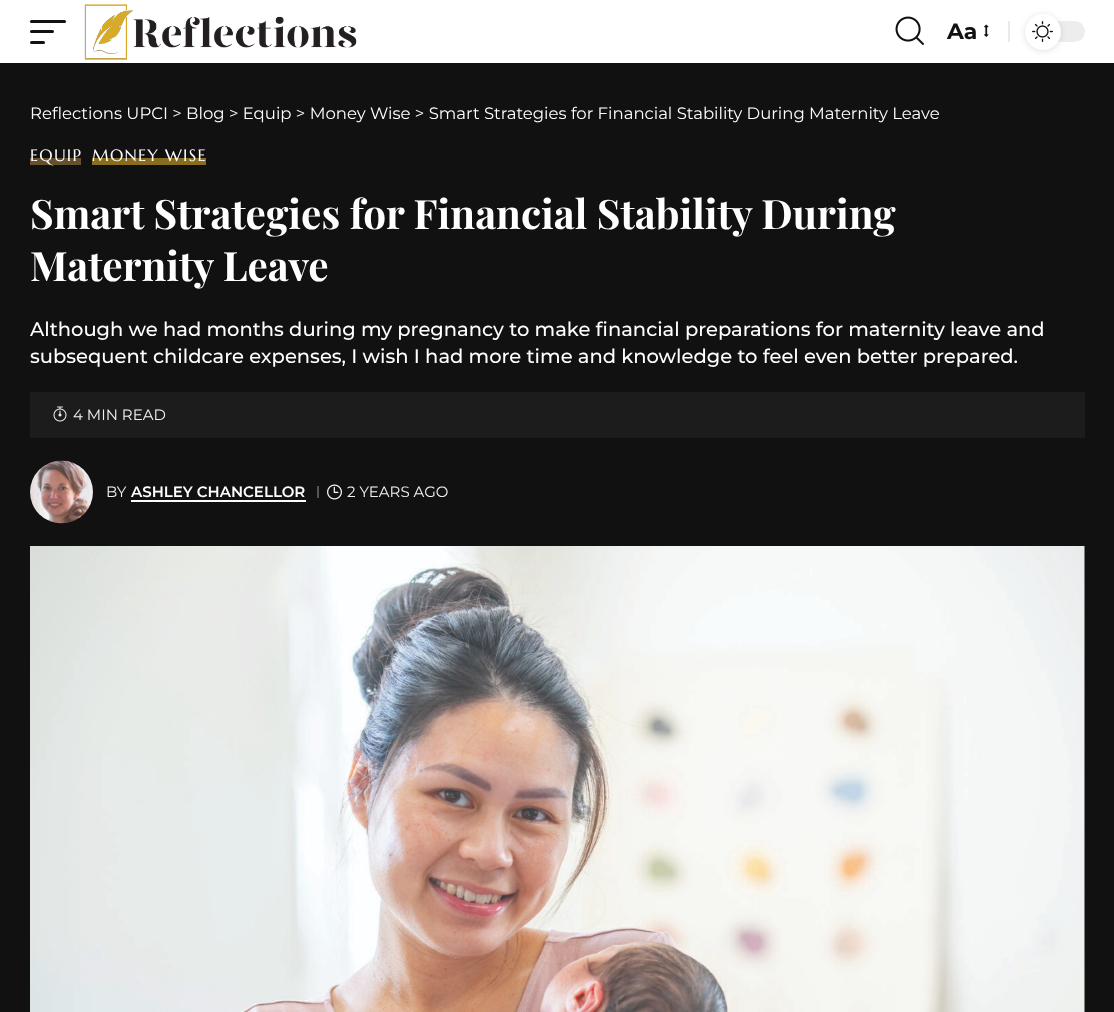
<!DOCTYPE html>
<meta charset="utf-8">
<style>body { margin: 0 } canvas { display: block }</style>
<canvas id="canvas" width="1114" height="1012"></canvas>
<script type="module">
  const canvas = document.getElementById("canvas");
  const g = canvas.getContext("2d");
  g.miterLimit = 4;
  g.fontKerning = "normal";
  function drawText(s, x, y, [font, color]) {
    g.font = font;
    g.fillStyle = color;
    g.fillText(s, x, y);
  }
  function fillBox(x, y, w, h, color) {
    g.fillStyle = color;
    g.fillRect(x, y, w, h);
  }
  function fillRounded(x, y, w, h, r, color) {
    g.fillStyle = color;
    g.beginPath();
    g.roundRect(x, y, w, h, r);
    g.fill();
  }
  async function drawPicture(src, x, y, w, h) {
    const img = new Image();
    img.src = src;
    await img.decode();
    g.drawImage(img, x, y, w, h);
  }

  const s1 = ["bold 22px Montserrat", "#111111"];
  const s2 = ["16.5px Montserrat", "#FFFFFF"];
  const s3 = ["16.5px Marcellus", "#FFFFFF"];
  const s4 = ["bold 40.5px Playfair Display", "#FFFFFF"];
  const s5 = ["500 19.5px Montserrat", "#FFFFFF"];
  const s6 = ["15px Montserrat", "#F2F2F2"];
  const s7 = ["600 15px Montserrat", "#FFFFFF"];

  fillBox(0, 0, 1114, 1012, "#FFFFFF");
  fillRounded(30, 20, 36, 3, 1.5, "#111111");
  fillRounded(30, 30, 24, 3, 1.5, "#111111");
  fillRounded(30, 41, 15, 3, 1.5, "#111111");
  await drawPicture("pic1.png", 84, 4, 273, 56);
  await drawPicture("pic2.png", 895, 16, 29, 29);
  drawText("Aa", 947, 39, s1);
  await drawPicture("pic3.png", 984, 24, 5, 13);
  fillBox(1008, 21, 2, 21, "#EAEAEA");
  fillRounded(1025, 21, 60, 21, 10.5, "#EDEDED");
  g.fillStyle = "rgba(0, 0, 0, 0.12)";
  g.filter = "blur(3px)";
  g.beginPath();
  g.roundRect(1025, 15, 36, 36, 18);
  g.fill();
  g.filter = "none";
  g.fillStyle = "#FFFFFF";
  g.beginPath();
  g.arc(1043, 32, 18, 0, Math.PI * 2);
  g.fill();
  await drawPicture("pic4.png", 1032, 21, 21, 21);
  fillBox(0, 63, 1114, 949, "#111111");
  drawText("Reflections UPCI > Blog > Equip > Money Wise > Smart Strategies for Financial Stability During Maternity Leave", 30, 119, s2);
  fillBox(30, 158, 51, 7, "#66512E");
  g.letterSpacing = "1.25px";
  drawText("EQUIP", 30, 161, s3);
  fillBox(92, 158, 114, 7, "#886D1E");
  drawText("MONEY WISE", 92, 161, s3);
  g.letterSpacing = "0px";
  drawText("Smart Strategies for Financial Stability During", 30, 229, s4);
  drawText("Maternity Leave", 30, 281, s4);
  drawText("Although we had months during my pregnancy to make financial preparations for maternity leave and", 30, 336, s5);
  drawText("subsequent childcare expenses, I wish I had more time and knowledge to feel even better prepared.", 30, 363, s5);
  fillBox(30, 392, 1055, 46, "#1C1C1C");
  await drawPicture("pic5.png", 53, 406, 14, 16);
  drawText("4 MIN READ", 73, 420, s6);
  await drawPicture("pic6.png", 30, 460, 63, 64);
  drawText("BY", 106, 497, s6);
  drawText("ASHLEY CHANCELLOR", 131, 497, s7);
  fillBox(131, 500, 175, 2, "#FFFFFF");
  fillBox(317, 486, 2, 12, "#545454");
  await drawPicture("pic7.png", 327, 484, 15, 16);
  drawText("2 YEARS AGO", 347, 497, s6);
  await drawPicture("pic8.png", 30, 546, 1055, 466);
</script>
